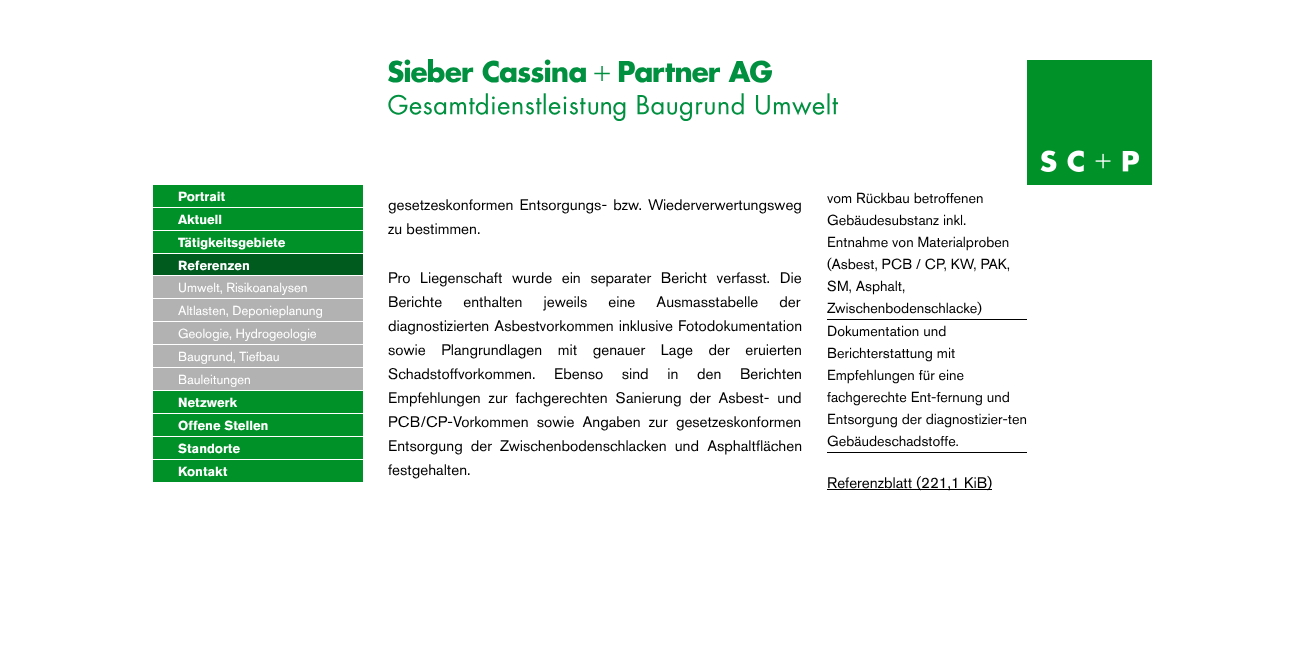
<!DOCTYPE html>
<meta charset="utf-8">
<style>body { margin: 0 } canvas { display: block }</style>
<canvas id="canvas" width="1305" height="648"></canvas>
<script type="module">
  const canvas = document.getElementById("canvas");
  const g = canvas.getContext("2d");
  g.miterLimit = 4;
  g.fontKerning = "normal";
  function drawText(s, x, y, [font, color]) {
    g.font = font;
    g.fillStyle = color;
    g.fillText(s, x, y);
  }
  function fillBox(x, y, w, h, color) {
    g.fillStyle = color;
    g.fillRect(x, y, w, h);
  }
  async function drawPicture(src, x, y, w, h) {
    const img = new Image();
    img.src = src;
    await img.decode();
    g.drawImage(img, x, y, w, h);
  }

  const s1 = ["bold 13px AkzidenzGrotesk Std", "#FFFFFF"];
  const s2 = ["13px AkzidenzGrotesk Std", "#FFFFFF"];
  const s3 = ["15.2px AkzidenzGrotesk Std", "#000000"];
  const s4 = ["14.4px AkzidenzGrotesk Std", "#000000"];

  fillBox(0, 0, 1305, 648, "#FFFFFF");
  await drawPicture("pic1.png", 388, 59, 450, 62);
  await drawPicture("pic2.png", 1027, 60, 125, 125);
  fillBox(153, 185, 210, 22, "#009128");
  drawText("Portrait", 178, 201, s1);
  fillBox(153, 208, 210, 22, "#009128");
  drawText("Aktuell", 178, 224, s1);
  fillBox(153, 231, 210, 22, "#009128");
  drawText("Tätigkeitsgebiete", 178, 247, s1);
  fillBox(153, 254, 210, 21, "#005B1F");
  drawText("Referenzen", 178, 270, s1);
  fillBox(153, 276, 210, 22, "#B2B2B2");
  drawText("Umwelt, Risikoanalysen", 178, 292, s2);
  fillBox(153, 299, 210, 22, "#B2B2B2");
  drawText("Altlasten, Deponieplanung", 178, 315, s2);
  fillBox(153, 322, 210, 22, "#B2B2B2");
  drawText("Geologie, Hydrogeologie", 178, 338, s2);
  fillBox(153, 345, 210, 22, "#B2B2B2");
  drawText("Baugrund, Tiefbau", 178, 361, s2);
  fillBox(153, 368, 210, 22, "#B2B2B2");
  drawText("Bauleitungen", 178, 384, s2);
  fillBox(153, 391, 210, 22, "#009128");
  drawText("Netzwerk", 178, 407, s1);
  fillBox(153, 414, 210, 22, "#009128");
  drawText("Offene Stellen", 178, 430, s1);
  fillBox(153, 437, 210, 22, "#009128");
  drawText("Standorte", 178, 453, s1);
  fillBox(153, 460, 210, 22, "#009128");
  drawText("Kontakt", 178, 476, s1);
  g.wordSpacing = "2px";
  drawText("gesetzeskonformen Entsorgungs- bzw. Wiederverwertungsweg", 388, 210, s3);
  g.wordSpacing = "0px";
  drawText("zu bestimmen.", 388, 234, s3);
  g.wordSpacing = "5.5px";
  drawText("Pro Liegenschaft wurde ein separater Bericht verfasst. Die", 388, 283, s3);
  g.wordSpacing = "17px";
  drawText("Berichte enthalten jeweils eine Ausmasstabelle der", 388, 307, s3);
  g.wordSpacing = "1px";
  drawText("diagnostizierten Asbestvorkommen inklusive Fotodokumentation", 388, 331, s3);
  g.wordSpacing = "11.5px";
  drawText("sowie Plangrundlagen mit genauer Lage der eruierten", 388, 355, s3);
  g.wordSpacing = "14.5px";
  drawText("Schadstoffvorkommen. Ebenso sind in den Berichten", 388, 379, s3);
  g.wordSpacing = "3.75px";
  drawText("Empfehlungen zur fachgerechten Sanierung der Asbest- und", 388, 403, s3);
  g.wordSpacing = "4px";
  drawText("PCB/CP-Vorkommen sowie Angaben zur gesetzeskonformen", 388, 427, s3);
  drawText("Entsorgung der Zwischenbodenschlacken und Asphaltflächen", 388, 451, s3);
  g.wordSpacing = "0px";
  drawText("festgehalten.", 388, 475, s3);
  fillBox(827, 319, 200, 1, "#000000");
  drawText("vom Rückbau betroffenen", 827, 203, s4);
  drawText("Gebäudesubstanz inkl.", 827, 225, s4);
  drawText("Entnahme von Materialproben", 827, 247, s4);
  drawText("(Asbest, PCB / CP, KW, PAK,", 827, 269, s4);
  drawText("SM, Asphalt,", 827, 291, s4);
  drawText("Zwischenbodenschlacke)", 827, 313, s4);
  fillBox(827, 452, 200, 1, "#000000");
  drawText("Dokumentation und", 827, 336, s4);
  drawText("Berichterstattung mit", 827, 358, s4);
  drawText("Empfehlungen für eine", 827, 380, s4);
  drawText("fachgerechte Ent-fernung und", 827, 402, s4);
  drawText("Entsorgung der diagnostizier-ten", 827, 424, s4);
  drawText("Gebäudeschadstoffe.", 827, 446, s4);
  fillBox(827, 489, 165, 1, "#000000");
  drawText("Referenzblatt (221,1 KiB)", 827, 488, s3);
</script>
